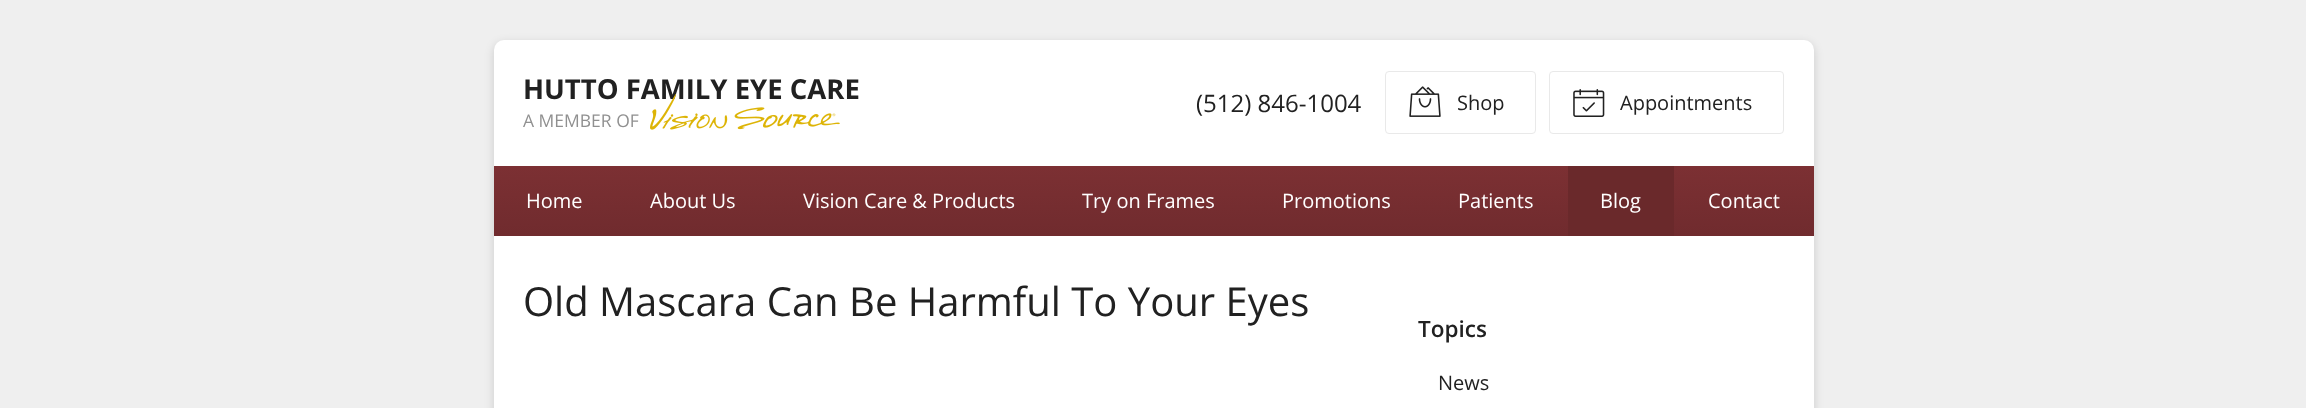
<!DOCTYPE html>
<meta charset="utf-8">
<style>body { margin: 0 } canvas { display: block }</style>
<canvas id="canvas" width="2306" height="408"></canvas>
<script type="module">
  const canvas = document.getElementById("canvas");
  const g = canvas.getContext("2d");
  g.miterLimit = 4;
  g.fontKerning = "normal";
  function drawText(s, x, y, [font, color]) {
    g.font = font;
    g.fillStyle = color;
    g.fillText(s, x, y);
  }
  function fillBox(x, y, w, h, color) {
    g.fillStyle = color;
    g.fillRect(x, y, w, h);
  }
  function fillRounded(x, y, w, h, r, color) {
    g.fillStyle = color;
    g.beginPath();
    g.roundRect(x, y, w, h, r);
    g.fill();
  }
  async function drawPicture(src, x, y, w, h) {
    const img = new Image();
    img.src = src;
    await img.decode();
    g.drawImage(img, x, y, w, h);
  }
  let gradient;

  const s1 = ["bold 27.5px Open Sans", "#212121"];
  const s2 = ["17.5px Open Sans", "#909090"];
  const s3 = ["24px Open Sans", "#212121"];
  const s4 = ["20px Open Sans", "#212121"];
  const s5 = ["20px Open Sans", "#FFFFFF"];
  const s6 = ["40px Open Sans", "#212121"];
  const s7 = ["600 22.5px Open Sans", "#212121"];

  fillBox(0, 0, 2306, 408, "#EFEFEF");
  g.fillStyle = "rgba(0, 0, 0, 0.15)";
  g.filter = "blur(5px)";
  g.beginPath();
  g.roundRect(494, 43, 1320, 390, 10);
  g.fill();
  g.filter = "none";
  fillRounded(494, 40, 1320, 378, 10, "#FFFFFF");
  drawText("HUTTO FAMILY EYE CARE", 523, 99, s1);
  drawText("A MEMBER OF", 523, 127, s2);
  await drawPicture("pic1.png", 650, 94, 190, 36);
  drawText("(512) 846-1004", 1196, 112, s3);
  g.beginPath();
  g.roundRect(1385.5, 71.5, 150, 62, 3.5);
  g.strokeStyle = "#E9E9E9";
  g.stroke();
  await drawPicture("pic2.png", 1409, 86, 32, 31);
  drawText("Shop", 1457, 110, s4);
  g.beginPath();
  g.roundRect(1549.5, 71.5, 234, 62, 3.5);
  g.stroke();
  await drawPicture("pic3.png", 1573, 89, 32, 28);
  drawText("Appointments", 1620, 110, s4);
  gradient = g.createLinearGradient(1154, 166, 1154, 236);
  gradient.addColorStop(0, "#7C3033");
  gradient.addColorStop(1, "#702B2E");
  g.fillStyle = gradient;
  g.fillRect(494, 166, 1320, 70);
  drawText("Home", 526, 208, s5);
  drawText("About Us", 650, 208, s5);
  drawText("Vision Care & Products", 803, 208, s5);
  drawText("Try on Frames", 1082, 208, s5);
  drawText("Promotions", 1282, 208, s5);
  drawText("Patients", 1458, 208, s5);
  fillBox(1568, 166, 106, 70, "#6A292B");
  drawText("Blog", 1600, 208, s5);
  drawText("Contact", 1708, 208, s5);
  drawText("Old Mascara Can Be Harmful To Your Eyes", 523, 316, s6);
  drawText("Topics", 1418, 337, s7);
  drawText("News", 1438, 390, s4);
</script>
